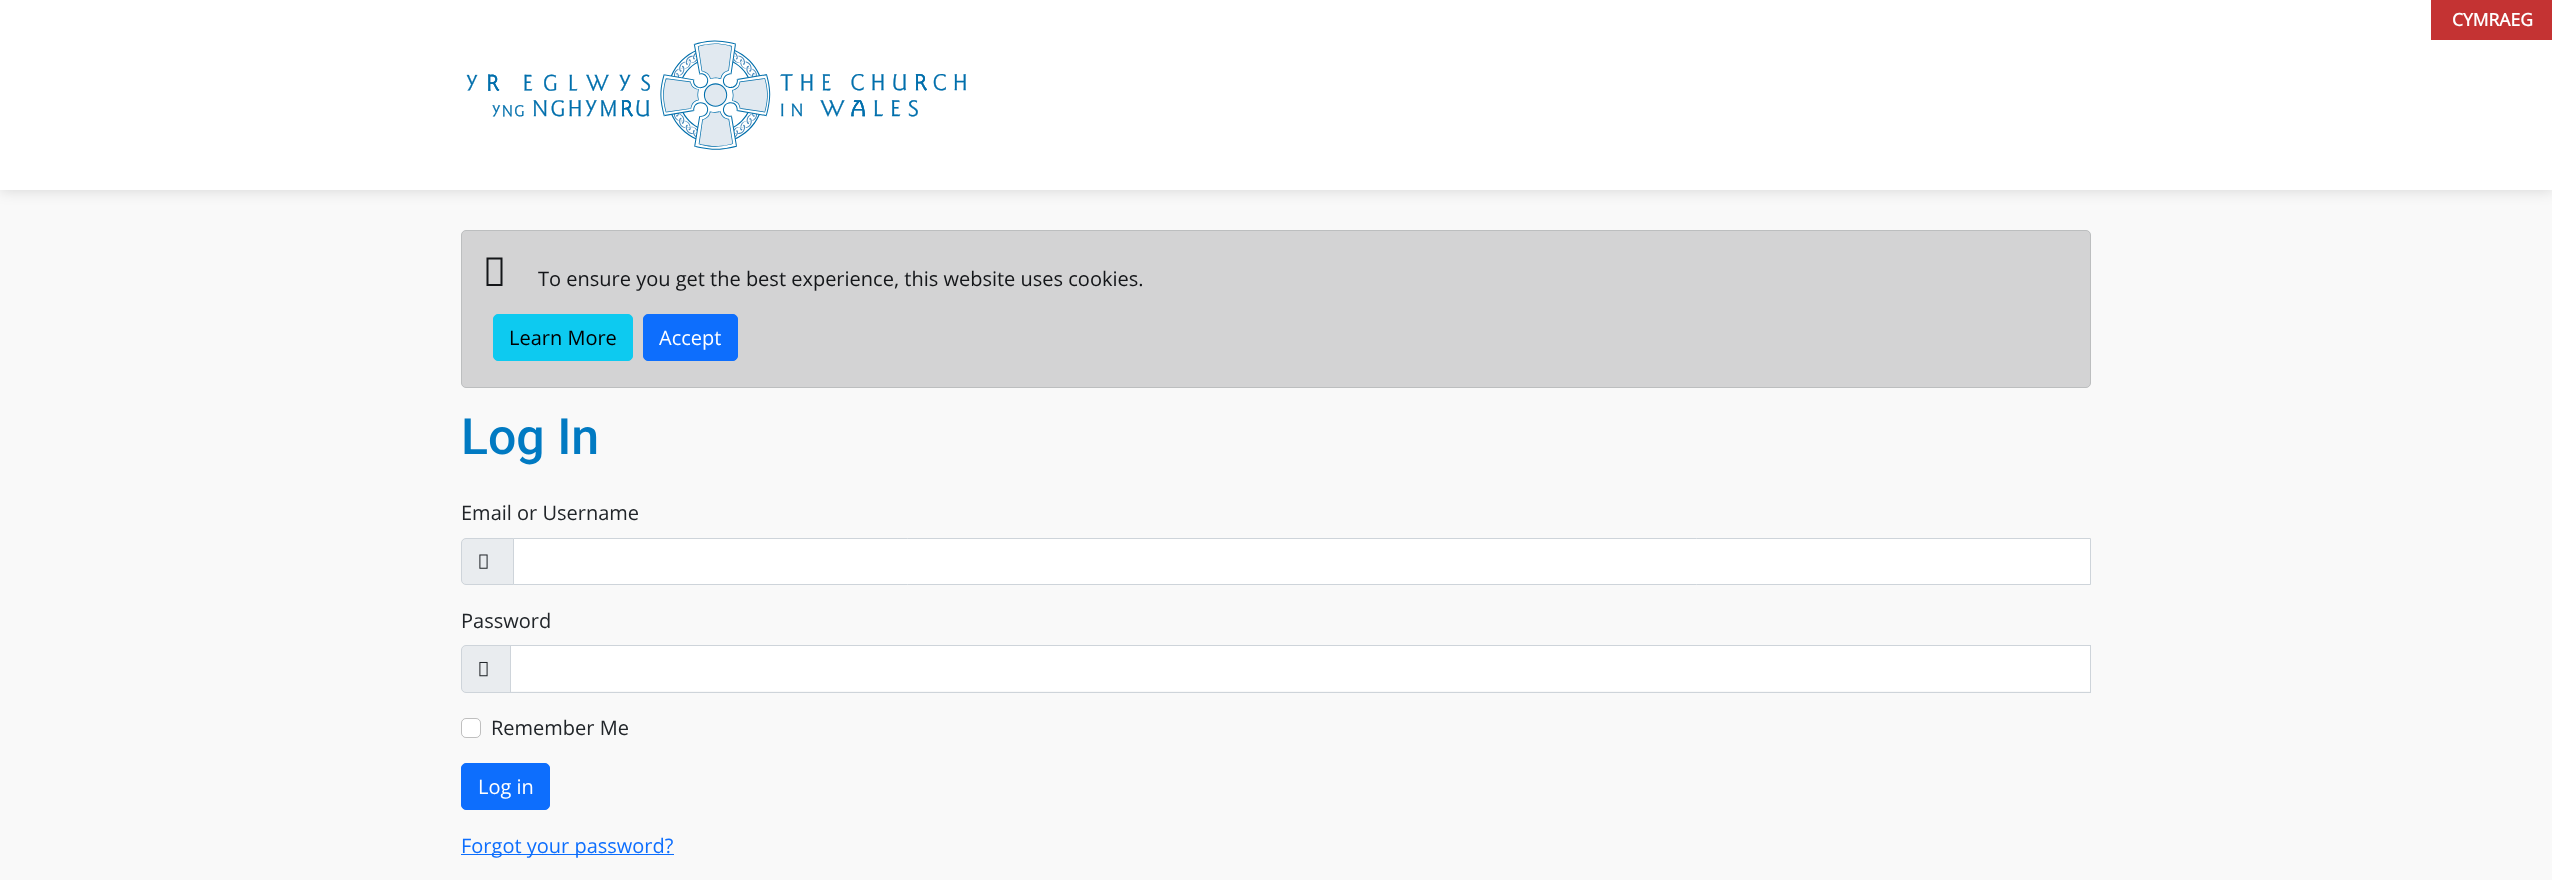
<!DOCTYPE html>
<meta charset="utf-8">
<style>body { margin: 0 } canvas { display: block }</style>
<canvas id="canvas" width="2552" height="888"></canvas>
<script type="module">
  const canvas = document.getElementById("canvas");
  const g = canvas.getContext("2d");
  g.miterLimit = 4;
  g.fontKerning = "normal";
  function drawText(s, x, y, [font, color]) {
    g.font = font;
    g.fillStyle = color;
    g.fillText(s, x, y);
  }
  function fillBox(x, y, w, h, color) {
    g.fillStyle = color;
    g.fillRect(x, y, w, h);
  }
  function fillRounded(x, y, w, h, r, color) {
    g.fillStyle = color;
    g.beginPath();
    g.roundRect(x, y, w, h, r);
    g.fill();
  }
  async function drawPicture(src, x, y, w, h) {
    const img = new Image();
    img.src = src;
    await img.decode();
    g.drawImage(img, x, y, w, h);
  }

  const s1 = ["bold 17.5px Open Sans", "#FFFFFF"];
  const s2 = ["20px Open Sans", "#141619"];
  const s3 = ["20px Open Sans", "#000000"];
  const s4 = ["20px Open Sans", "#FFFFFF"];
  const s5 = ["500 50px Roboto", "#017AC2"];
  const s6 = ["20px Open Sans", "#212529"];
  const s7 = ["20px Open Sans", "#0D6EFD"];

  fillBox(0, 0, 2552, 888, "#FFFFFF");
  fillBox(0, 190, 2552, 690, "#F9F9F9");
  g.fillStyle = "rgba(0, 0, 0, 0.15)";
  g.filter = "blur(7.5px)";
  g.beginPath();
  g.rect(0, 0, 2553, 190);
  g.fill();
  g.filter = "none";
  fillBox(0, 0, 2552, 190, "#FFFFFF");
  fillBox(2431, 0, 121, 40, "#C43333");
  drawText("CYMRAEG", 2452, 26, s1);
  await drawPicture("pic1.png", 466, 40, 500, 110);
  g.fillStyle = "#D3D3D4";
  g.beginPath();
  g.roundRect(461.5, 230.5, 1629, 157, 4.5);
  g.fill();
  g.strokeStyle = "#BCBEBF";
  g.stroke();
  g.fillStyle = "#141619";
  g.beginPath();
  g.moveTo(486.5, 286);
  g.lineTo(486.5, 257.5);
  g.lineTo(502.5, 257.5);
  g.lineTo(502.5, 286);
  g.closePath();
  g.moveTo(488.5, 284);
  g.lineTo(500.5, 284);
  g.lineTo(500.5, 259.5);
  g.lineTo(488.5, 259.5);
  g.closePath();
  g.fill();
  drawText("To ensure you get the best experience, this website uses cookies.", 538, 286, s2);
  g.fillStyle = "#0DCAF0";
  g.beginPath();
  g.roundRect(493.5, 314.5, 139, 46, 4.5);
  g.fill();
  g.strokeStyle = "#0DCAF0";
  g.stroke();
  drawText("Learn More", 509, 345, s3);
  g.fillStyle = "#0D6EFD";
  g.beginPath();
  g.roundRect(643.5, 314.5, 94, 46, 4.5);
  g.fill();
  g.strokeStyle = "#0D6EFD";
  g.stroke();
  drawText("Accept", 659, 345, s4);
  drawText("Log In", 461, 454, s5);
  drawText("Email or Username", 461, 520, s6);
  g.fillStyle = "#E9ECEF";
  g.beginPath();
  g.roundRect(461.5, 538.5, 52, 46, [4.5, 0, 0, 4.5]);
  g.fill();
  g.strokeStyle = "#CED4DA";
  g.stroke();
  await drawPicture("pic2.png", 479, 554, 9, 15);
  g.fillStyle = "#FFFFFF";
  g.beginPath();
  g.rect(513.5, 538.5, 1577, 46);
  g.fill();
  g.stroke();
  drawText("Password", 461, 628, s6);
  g.fillStyle = "#E9ECEF";
  g.beginPath();
  g.roundRect(461.5, 645.5, 49, 47, [4.5, 0, 0, 4.5]);
  g.fill();
  g.stroke();
  await drawPicture("pic3.png", 479, 661, 9, 16);
  fillBox(511, 646, 1579, 45, "#FFFFFF");
  g.strokeRect(510.5, 645.5, 1580, 47);
  fillRounded(461, 718, 20, 20, 5, "#FFFFFF");
  g.beginPath();
  g.roundRect(461.5, 718.5, 19, 19, 4.5);
  g.strokeStyle = "rgba(0, 0, 0, 0.25)";
  g.stroke();
  drawText("Remember Me", 491, 735, s6);
  g.fillStyle = "#0D6EFD";
  g.beginPath();
  g.roundRect(461.5, 763.5, 88, 46, 4.5);
  g.fill();
  g.strokeStyle = "#0D6EFD";
  g.stroke();
  drawText("Log in", 478, 794, s4);
  fillBox(461, 854, 213, 1, "#0D6EFD");
  drawText("Forgot your password?", 461, 853, s7);
</script>
